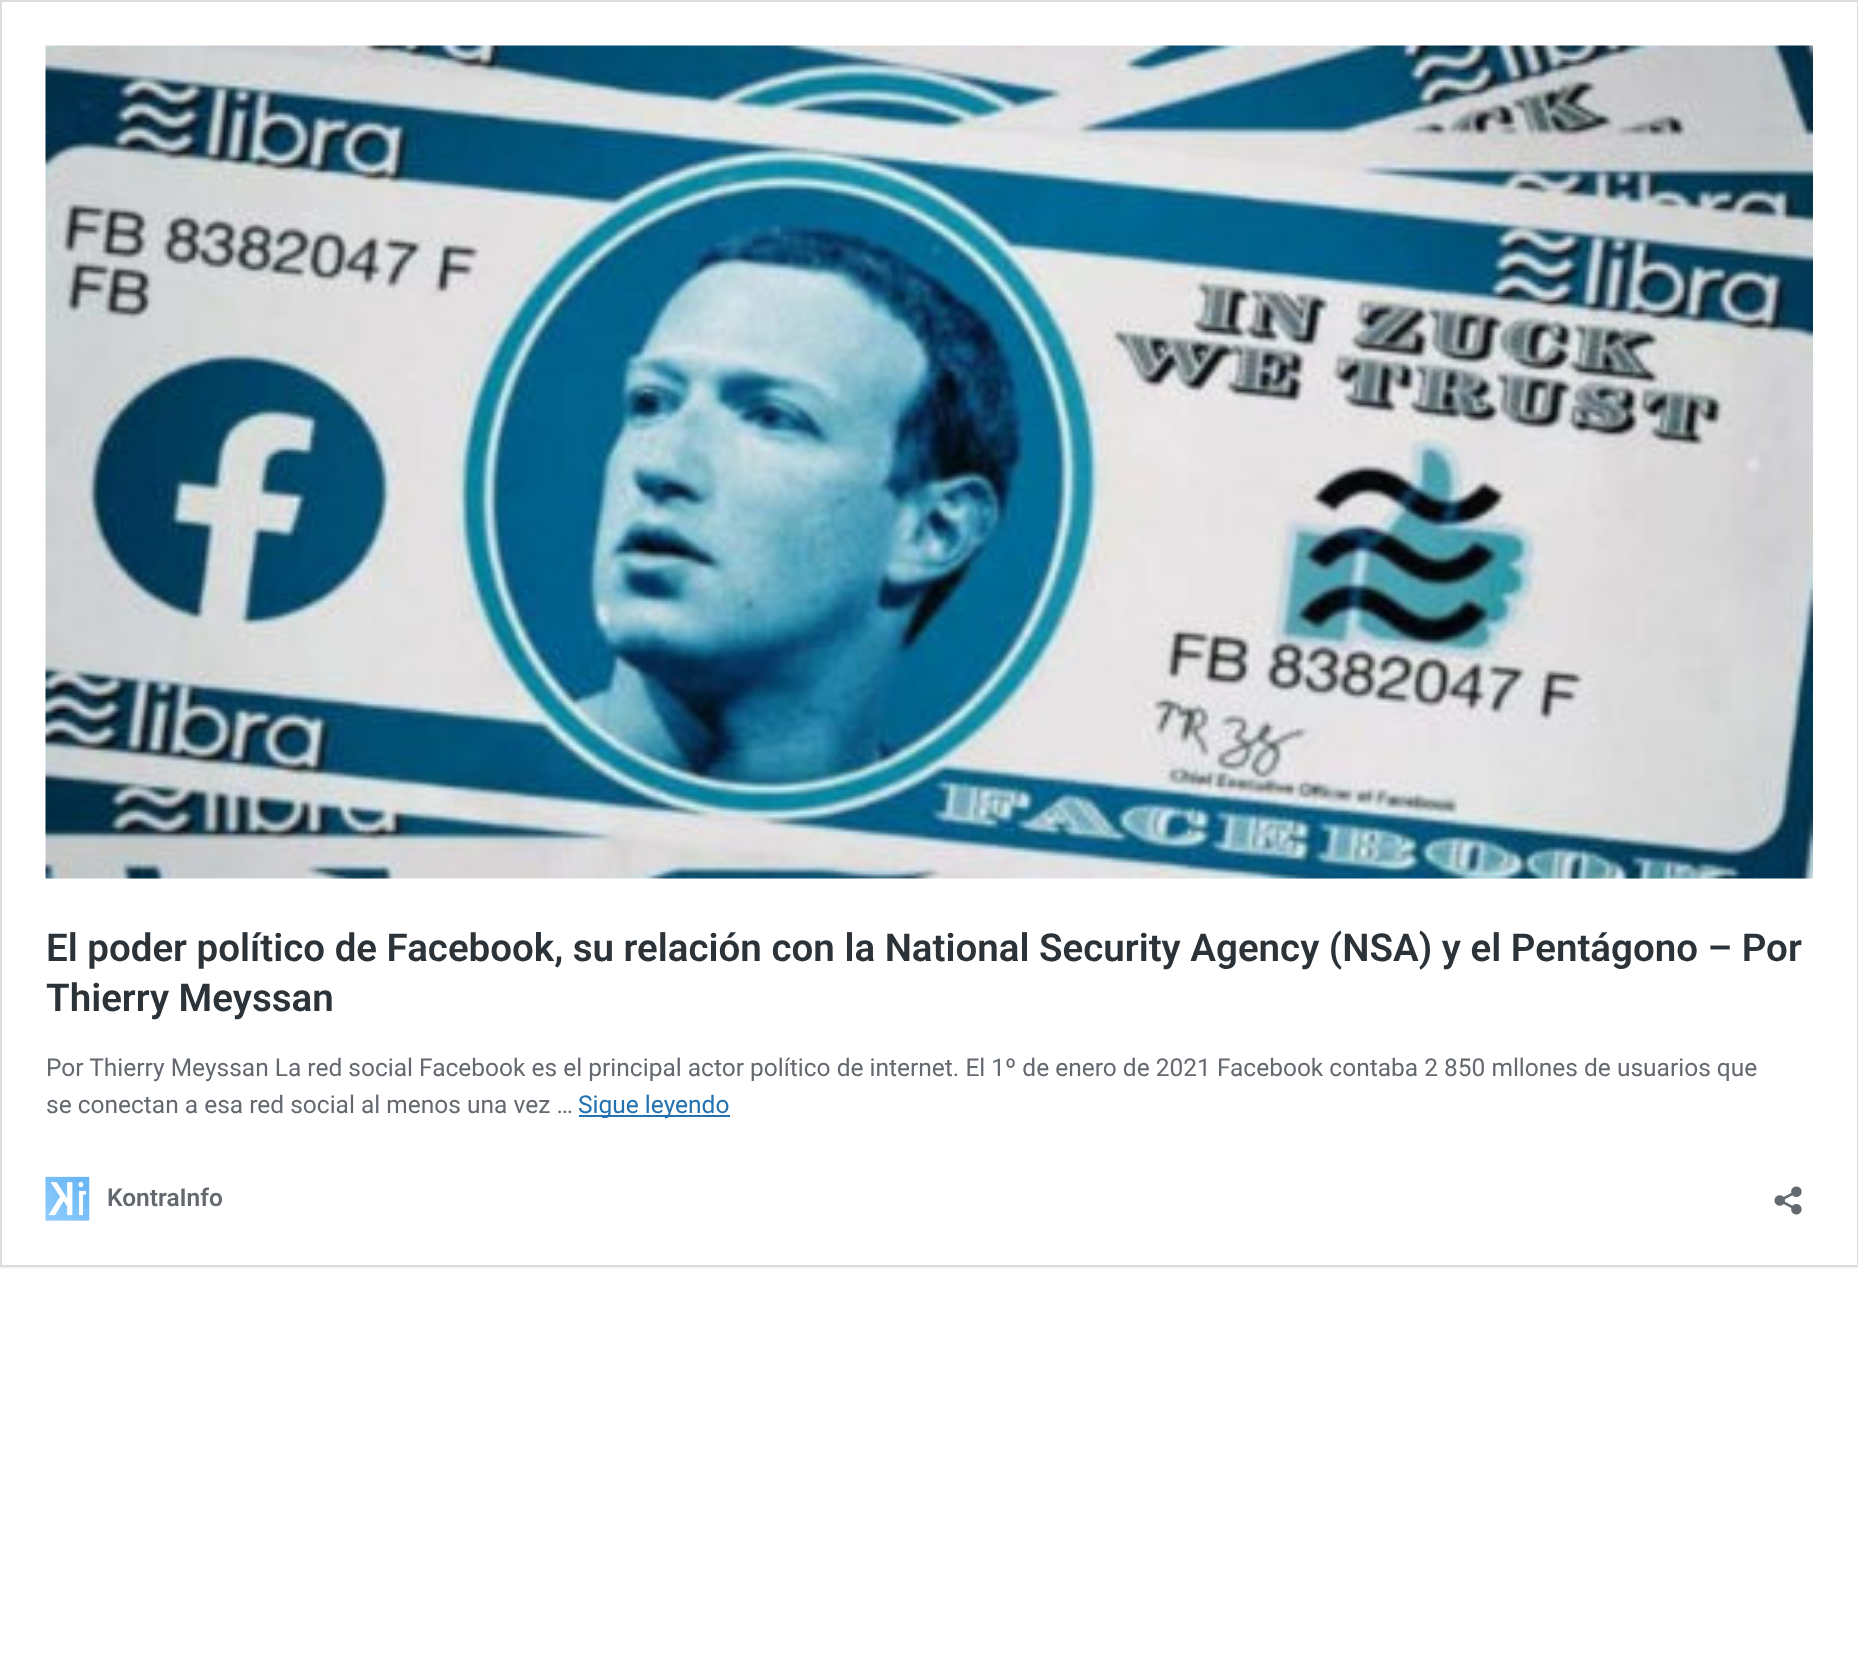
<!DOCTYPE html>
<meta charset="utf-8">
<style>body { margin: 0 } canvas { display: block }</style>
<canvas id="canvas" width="1858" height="1661"></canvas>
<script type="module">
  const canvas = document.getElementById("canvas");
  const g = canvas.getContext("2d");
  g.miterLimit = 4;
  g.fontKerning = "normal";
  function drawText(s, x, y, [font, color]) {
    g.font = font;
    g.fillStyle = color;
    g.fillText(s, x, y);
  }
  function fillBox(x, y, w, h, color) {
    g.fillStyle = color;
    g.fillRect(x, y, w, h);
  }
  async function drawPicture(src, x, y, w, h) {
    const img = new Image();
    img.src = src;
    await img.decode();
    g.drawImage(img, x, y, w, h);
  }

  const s1 = ["600 38.5px Roboto", "#2C3338"];
  const s2 = ["24.5px Roboto", "#646970"];
  const s3 = ["24.5px Roboto", "#2271B1"];
  const s4 = ["600 24.5px Roboto", "#646970"];

  fillBox(0, 0, 1858, 1661, "#FFFFFF");
  g.save();
  g.beginPath();
  g.rect(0, 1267, 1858, 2);
  g.clip();
  g.fillStyle = "rgba(0, 0, 0, 0.05)";
  g.filter = "blur(1px)";
  g.beginPath();
  g.rect(0, 2, 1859, 1267);
  g.fill();
  g.filter = "none";
  g.restore();
  g.strokeStyle = "#DCDCDE";
  g.lineWidth = 2;
  g.strokeRect(1, 1, 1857, 1265);
  await drawPicture("pic1.png", 45, 45, 1768, 834);
  drawText("El poder político de Facebook, su relación con la National Security Agency (NSA) y el Pentágono – Por", 46, 961, s1);
  drawText("Thierry Meyssan", 46, 1011, s1);
  drawText("Por Thierry Meyssan La red social Facebook es el principal actor político de internet. El 1º de enero de 2021 Facebook contaba 2 850 mllones de usuarios que", 46, 1076, s2);
  drawText("se conectan a esa red social al menos una vez …", 46, 1113, s2);
  fillBox(579, 1115, 151, 2, "#2271B1");
  drawText("Sigue leyendo", 578, 1113, s3);
  await drawPicture("pic2.png", 45, 1176, 45, 45);
  drawText("KontraInfo", 107, 1206, s4);
  await drawPicture("pic3.png", 1774, 1186, 28, 29);
</script>
